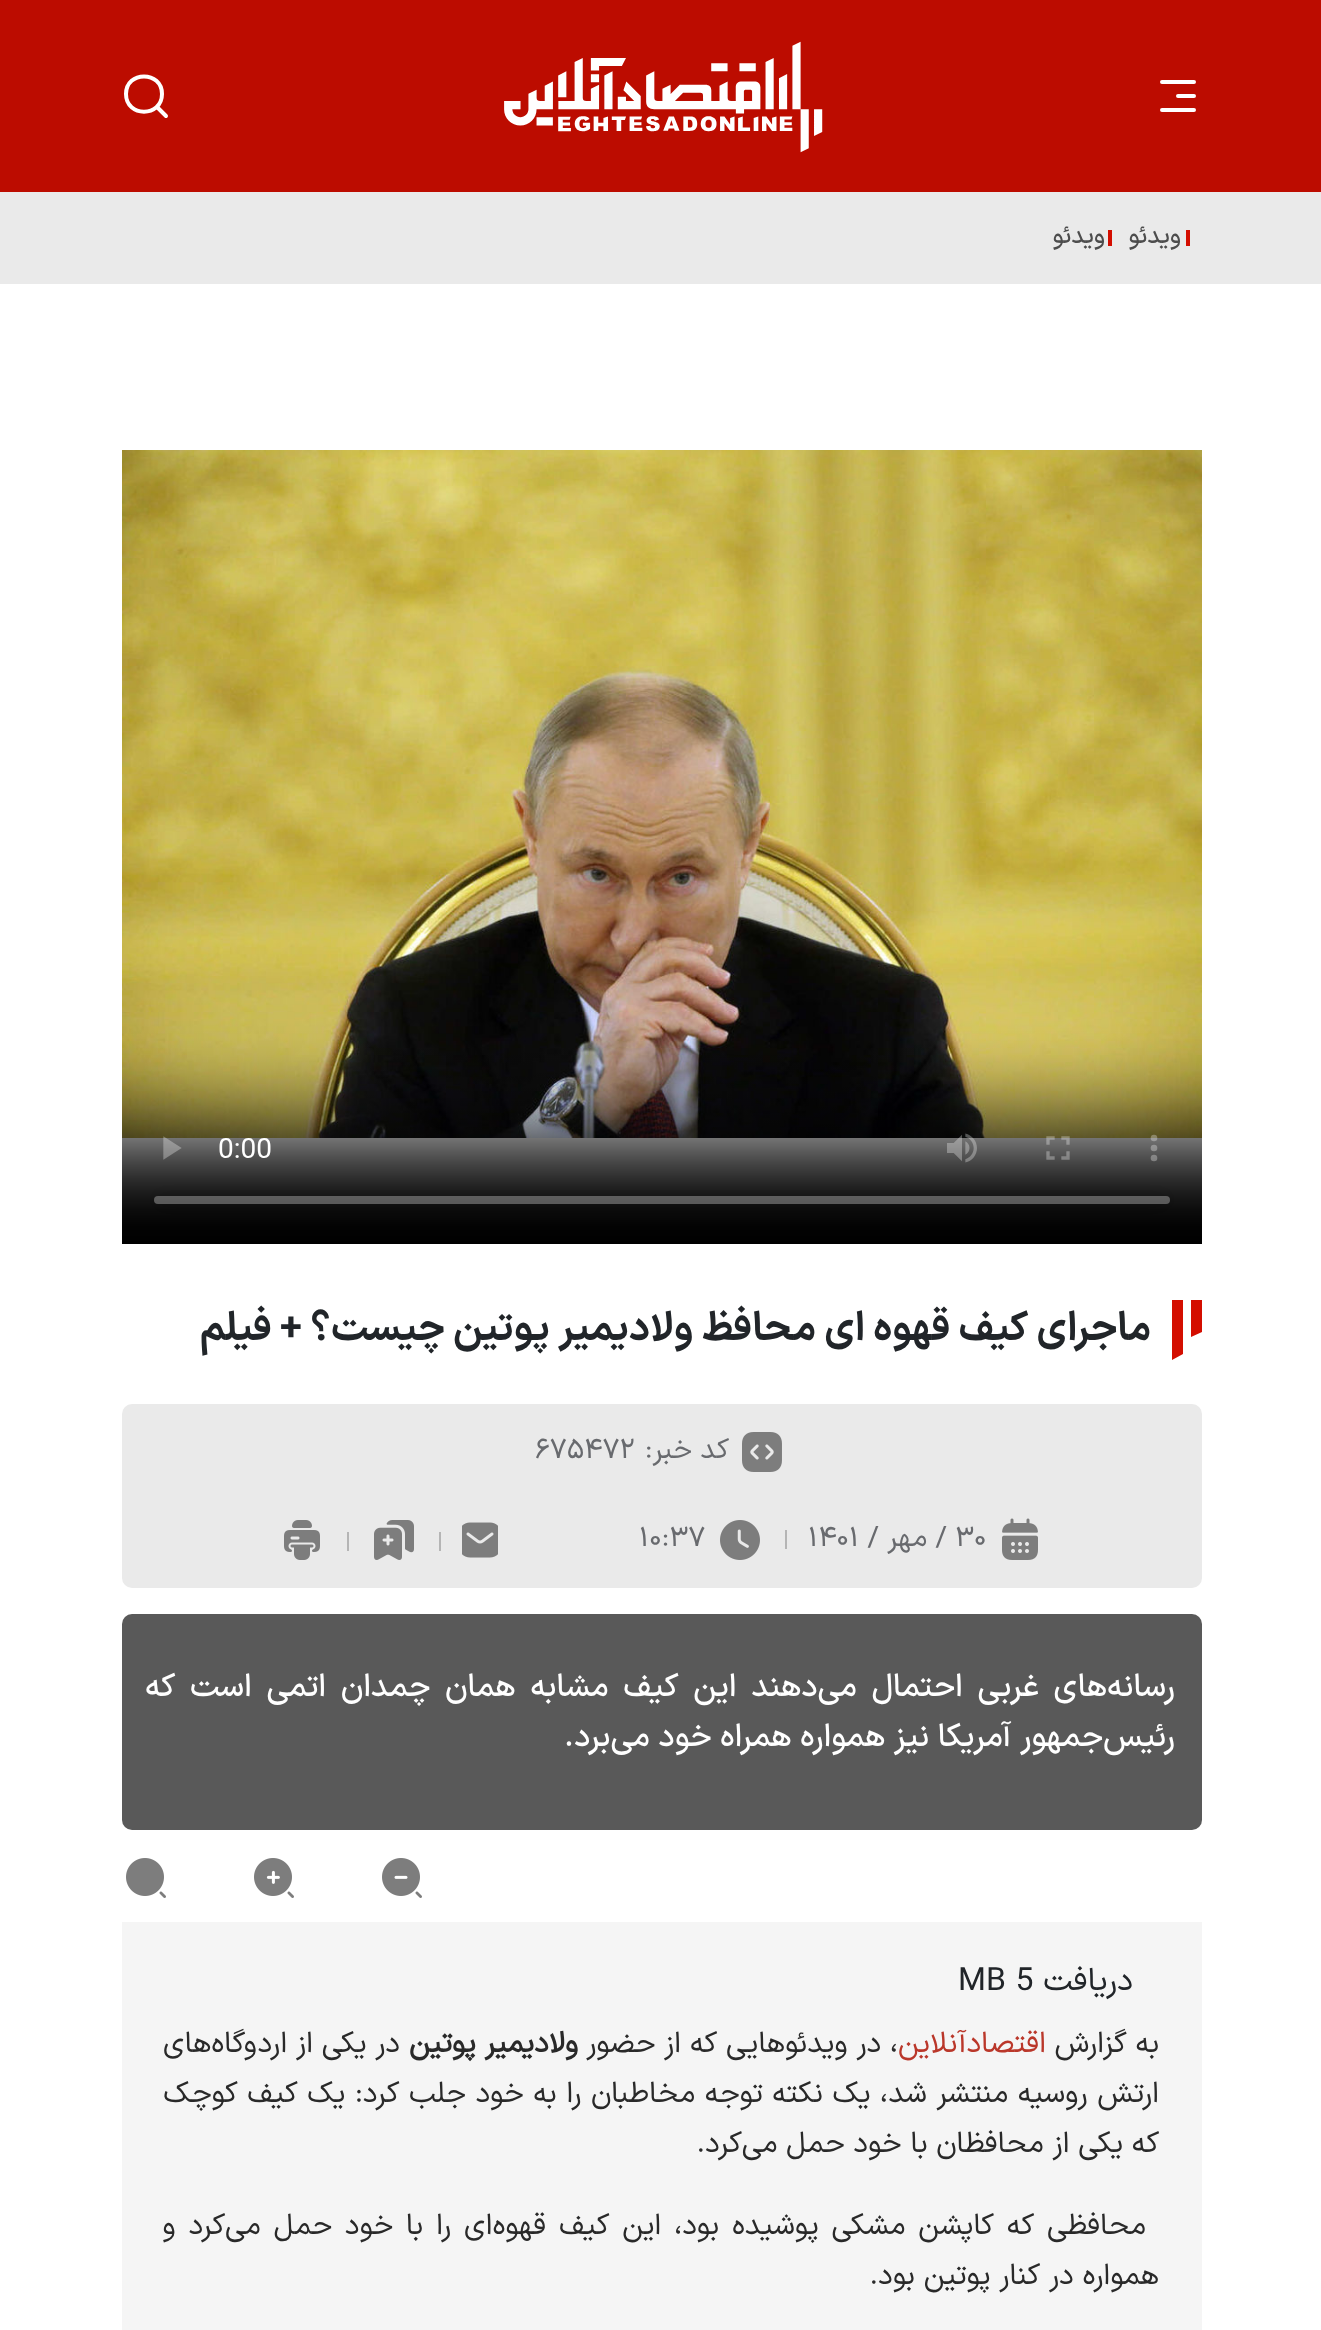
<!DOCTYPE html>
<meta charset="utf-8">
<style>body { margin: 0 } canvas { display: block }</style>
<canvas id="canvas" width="1321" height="2330"></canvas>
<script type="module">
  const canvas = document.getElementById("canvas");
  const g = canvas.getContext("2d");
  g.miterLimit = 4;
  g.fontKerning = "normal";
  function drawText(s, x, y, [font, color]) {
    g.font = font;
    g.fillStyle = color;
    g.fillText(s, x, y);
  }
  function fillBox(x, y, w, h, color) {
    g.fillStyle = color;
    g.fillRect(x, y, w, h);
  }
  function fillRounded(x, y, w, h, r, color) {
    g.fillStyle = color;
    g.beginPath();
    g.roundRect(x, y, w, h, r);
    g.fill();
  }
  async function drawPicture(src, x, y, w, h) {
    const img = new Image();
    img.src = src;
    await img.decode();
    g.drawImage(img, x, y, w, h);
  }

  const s1 = ["500 24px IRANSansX", "#4D4D4D"];
  const s2 = ["bold 40px IRANSansX", "#212529"];
  const s3 = ["28px IRANSansX", "#686A6E"];
  const s4 = ["500 32px IRANSansX", "#FFFFFF"];
  const s5 = ["32px IRANSansX", "#212529"];
  const s6 = ["29.35px IRANSansX", "#292929"];
  const s7 = ["29.35px IRANSansX", "#BA372A"];
  const s8 = ["bold 29.35px 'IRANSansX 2'", "#292929"];

  fillBox(0, 0, 1321, 2330, "#FFFFFF");
  fillBox(0, 0, 1321, 192, "#BC0C00");
  g.beginPath();
  g.moveTo(1194, 82);
  g.lineTo(1162, 82);
  g.moveTo(1194, 96);
  g.lineTo(1178, 96);
  g.moveTo(1194, 110);
  g.lineTo(1162, 110);
  g.strokeStyle = "#FFFFFF";
  g.lineWidth = 4;
  g.lineCap = "round";
  g.stroke();
  await drawPicture("pic1.png", 504, 41, 319, 112);
  g.beginPath();
  g.moveTo(166, 116);
  g.lineTo(157, 107);
  g.moveTo(162, 94);
  g.bezierCurveTo(162, 117.5, 126, 117.5, 126, 94);
  g.bezierCurveTo(126, 70.5, 162, 70.5, 162, 94);
  g.closePath();
  g.stroke();
  fillBox(0, 192, 1321, 92, "#EAEAEA");
  fillBox(1186, 230, 4, 16, "#D40E00");
  g.direction = "rtl";
  drawText("ویدئو", 1181, 243, s1);
  fillBox(1108, 230, 4, 16, "#D40E00");
  drawText("ویدئو", 1105, 243, s1);
  await drawPicture("pic2.png", 122, 450, 1080, 794);
  g.fillStyle = "#D40E00";
  g.beginPath();
  g.moveTo(1183, 1354);
  g.lineTo(1172, 1360);
  g.lineTo(1172, 1300);
  g.lineTo(1183, 1300);
  g.closePath();
  g.moveTo(1202, 1332);
  g.lineTo(1191, 1337);
  g.lineTo(1191, 1300);
  g.lineTo(1202, 1300);
  g.closePath();
  g.fill();
  drawText("ماجرای کیف قهوه ای محافظ ولادیمیر پوتین چیست؟ + فیلم", 1151, 1340, s2);
  fillRounded(122, 1404, 1080, 184, 10, "#EAEAEA");
  await drawPicture("pic3.png", 742, 1432, 40, 40);
  drawText("کد خبر:", 729, 1458, s3);
  g.direction = "ltr";
  drawText("۶۷۵۴۷۲", 535, 1458, s3);
  await drawPicture("pic4.png", 1002, 1518, 36, 42);
  drawText("۳۰", 955, 1546, s3);
  g.direction = "rtl";
  drawText("/ مهر /", 947, 1546, s3);
  g.direction = "ltr";
  drawText("۱۴۰۱", 808, 1546, s3);
  fillBox(785, 1530, 2, 19, "#B5B5B5");
  await drawPicture("pic5.png", 720, 1520, 40, 40);
  drawText("۱۰:۳۷", 639, 1546, s3);
  await drawPicture("pic6.png", 462, 1522, 36, 36);
  fillBox(439, 1532, 2, 19, "#B5B5B5");
  await drawPicture("pic7.png", 374, 1520, 40, 40);
  fillBox(347, 1532, 2, 19, "#B5B5B5");
  await drawPicture("pic8.png", 284, 1520, 36, 40);
  fillRounded(122, 1614, 1080, 216, 10, "#595959");
  g.wordSpacing = "6.1px";
  g.direction = "rtl";
  drawText("رسانه‌های غربی احتمال می‌دهند این کیف مشابه همان چمدان اتمی است که", 1175, 1696, s4);
  g.wordSpacing = "0px";
  drawText("رئیس‌جمهور آمریکا نیز همواره همراه خود می‌برد.", 1175, 1746, s4);
  await drawPicture("pic9.png", 382, 1858, 40, 40);
  await drawPicture("pic10.png", 254, 1858, 40, 40);
  await drawPicture("pic11.png", 126, 1858, 40, 40);
  fillBox(122, 1922, 1080, 408, "#F5F5F5");
  drawText("دریافت", 1133, 1990, s5);
  g.direction = "ltr";
  drawText("MB 5", 958, 1990, s5);
  g.direction = "rtl";
  drawText("به گزارش", 1159, 2052, s6);
  drawText("اقتصادآنلاین", 1046, 2052, s7);
  drawText("، در ویدئو‌هایی که از حضور", 898, 2052, s6);
  drawText("ولادیمیر پوتین", 578, 2052, s8);
  drawText("در یکی از اردوگاه‌های", 400, 2052, s6);
  g.wordSpacing = "0.8px";
  drawText("ارتش روسیه منتشر شد، یک نکته توجه مخاطبان را به خود جلب کرد: یک کیف کوچک", 1159, 2102, s6);
  g.wordSpacing = "0px";
  drawText("که یکی از محافظان با خود حمل می‌کرد.", 1159, 2152, s6);
  g.wordSpacing = "4.1px";
  drawText("محافظی که کاپشن مشکی پوشیده بود، این کیف قهوه‌ای را با خود حمل می‌کرد و", 1146, 2234, s6);
  g.wordSpacing = "0px";
  drawText("همواره در کنار پوتین بود.", 1159, 2284, s6);
</script>
